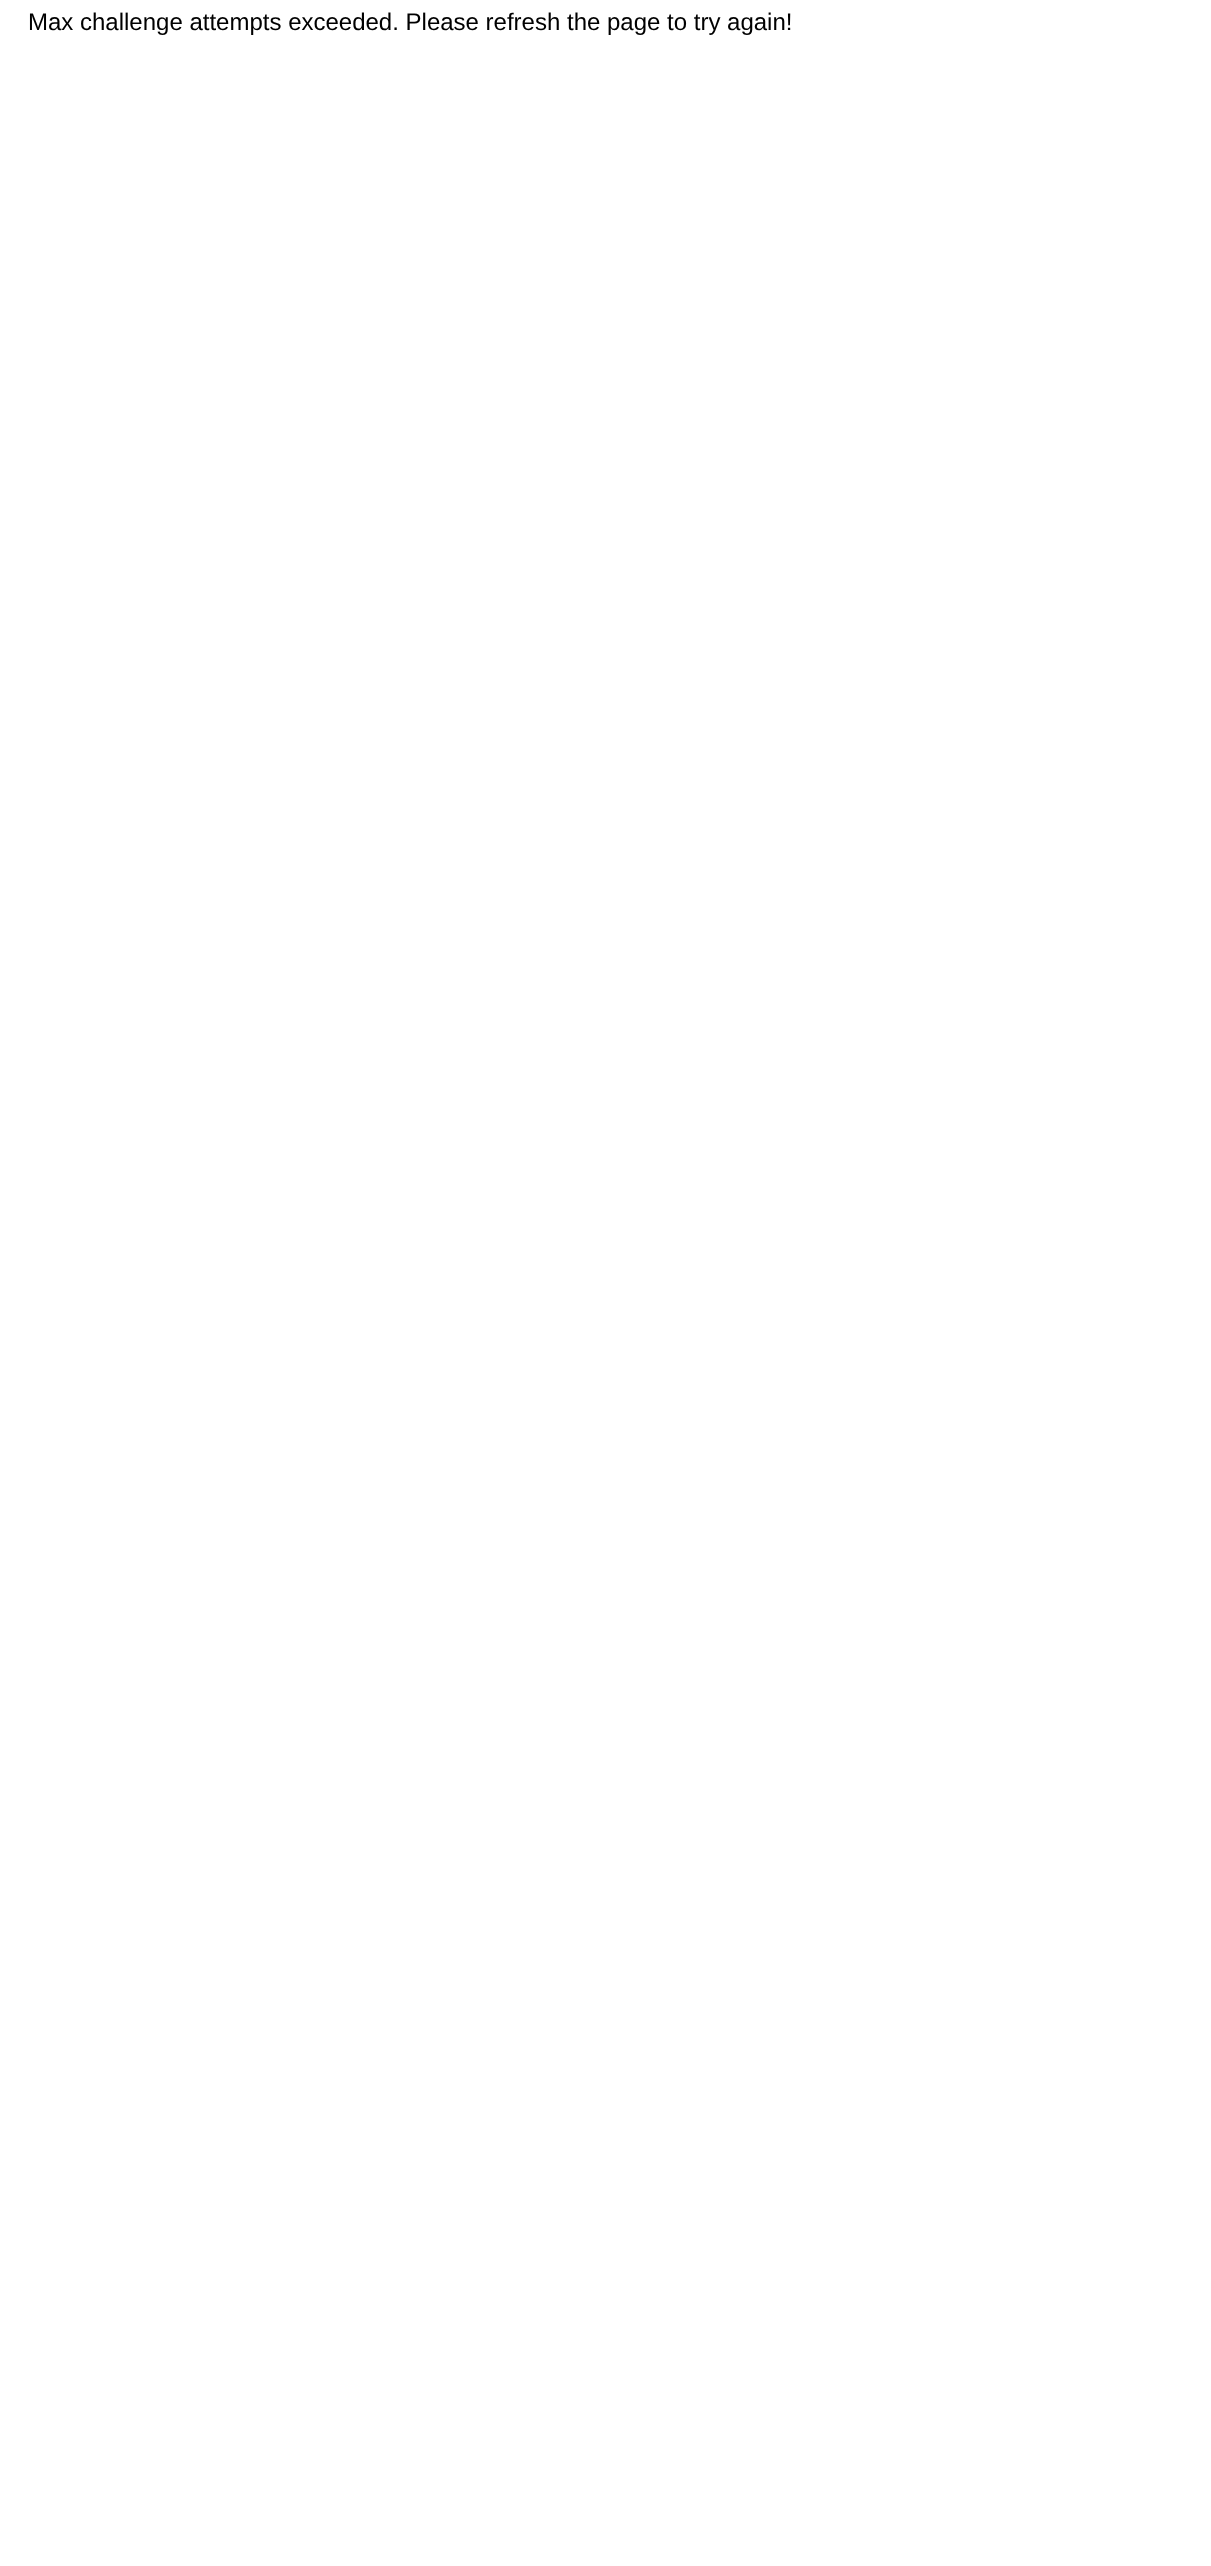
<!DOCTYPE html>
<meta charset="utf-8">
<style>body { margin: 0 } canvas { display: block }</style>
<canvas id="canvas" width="1211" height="2566"></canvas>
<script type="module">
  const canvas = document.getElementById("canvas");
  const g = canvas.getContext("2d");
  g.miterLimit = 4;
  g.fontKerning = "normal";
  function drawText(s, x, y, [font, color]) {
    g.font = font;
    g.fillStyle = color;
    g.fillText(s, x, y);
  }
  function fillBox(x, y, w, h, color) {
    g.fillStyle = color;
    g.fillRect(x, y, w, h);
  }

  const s1 = ["24px Liberation Sans", "#000000"];

  fillBox(0, 0, 1211, 2566, "#FFFFFF");
  drawText("Max challenge attempts exceeded. Please refresh the page to try again!", 28, 30, s1);
</script>
